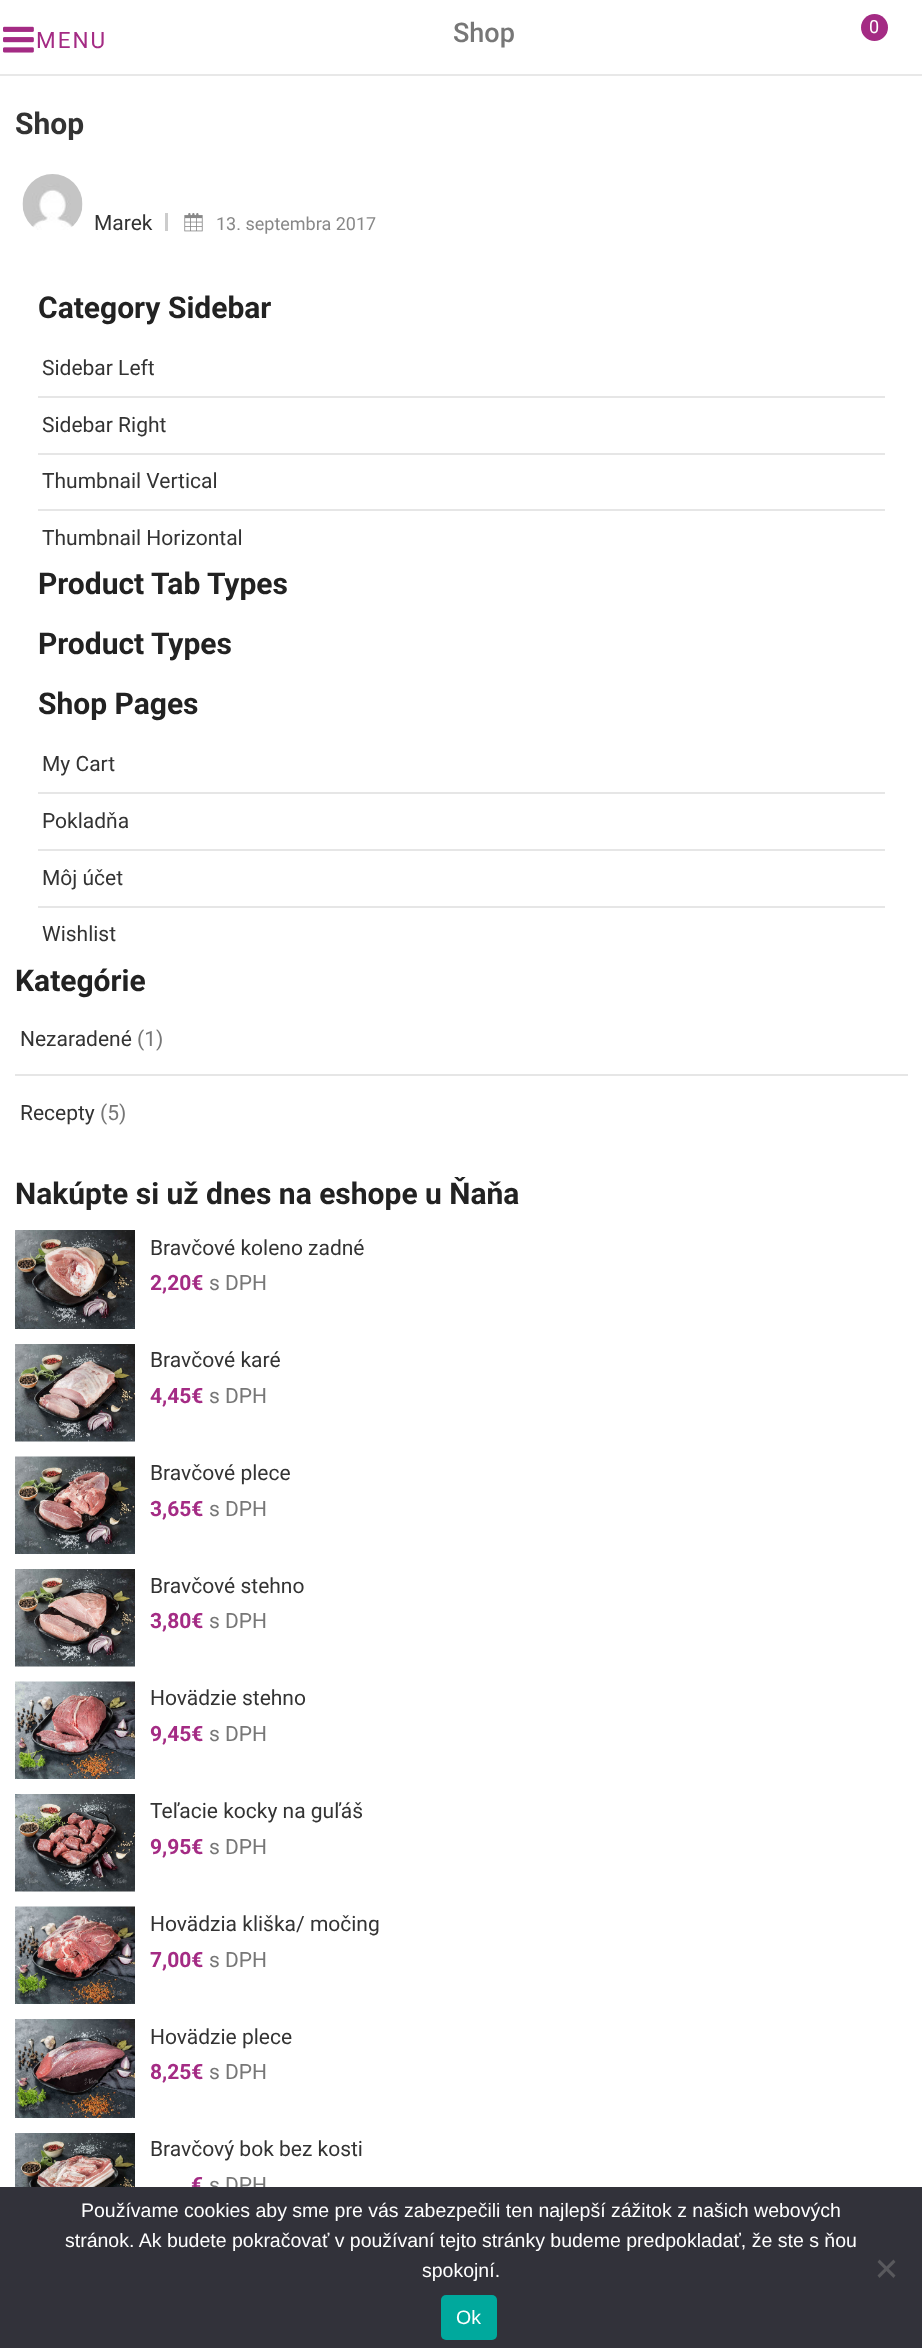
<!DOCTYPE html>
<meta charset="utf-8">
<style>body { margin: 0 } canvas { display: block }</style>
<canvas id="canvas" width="922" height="2348"></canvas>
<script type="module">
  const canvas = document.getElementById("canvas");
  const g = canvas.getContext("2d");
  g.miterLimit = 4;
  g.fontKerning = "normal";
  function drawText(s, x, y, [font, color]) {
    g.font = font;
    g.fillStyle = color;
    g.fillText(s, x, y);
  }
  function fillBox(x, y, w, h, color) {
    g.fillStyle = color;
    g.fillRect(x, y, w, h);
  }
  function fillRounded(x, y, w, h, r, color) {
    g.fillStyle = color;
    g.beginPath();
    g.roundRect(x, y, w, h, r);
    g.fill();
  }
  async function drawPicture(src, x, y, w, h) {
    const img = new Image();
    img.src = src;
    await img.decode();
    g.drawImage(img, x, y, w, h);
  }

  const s1 = ["22.5px Roboto", "#A42B84"];
  const s2 = ["500 27px Roboto", "#777777"];
  const s3 = ["18px Roboto", "#FFFFFF"];
  const s4 = ["bold 30px Roboto", "#333333"];
  const s5 = ["21px Roboto", "#333333"];
  const s6 = ["18px Roboto", "#888888"];
  const s7 = ["bold 30px Roboto", "#222222"];
  const s8 = ["21px Roboto", "#777777"];
  const s9 = ["bold 21px Roboto", "#A42B84"];
  const s10 = ["19.5px Liberation Sans", "#FFFFFF"];

  fillBox(0, 0, 922, 2348, "#FFFFFF");
  fillBox(0, 74, 922, 2, "rgba(0, 0, 0, 0.09)");
  await drawPicture("pic1.png", 3, 26, 31, 27);
  g.letterSpacing = "2px";
  drawText("MENU", 36, 48, s1);
  g.letterSpacing = "0px";
  drawText("Shop", 453, 42, s2);
  g.fillStyle = "#A42B84";
  g.beginPath();
  g.arc(874.5, 27.5, 13.5, 0, Math.PI * 2);
  g.fill();
  drawText("0", 869, 33, s3);
  drawText("Shop", 15, 134, s4);
  await drawPicture("pic2.png", 22, 174, 61, 56);
  drawText("Marek", 94, 230, s5);
  fillBox(165, 213, 3, 18, "#CCCCCC");
  await drawPicture("pic3.png", 184, 213, 19, 19);
  drawText("13. septembra 2017", 216, 230, s6);
  drawText("Category Sidebar", 38, 318, s7);
  fillBox(38, 396, 847, 2, "#E6E6E6");
  drawText("Sidebar Left", 42, 375, s5);
  fillBox(38, 453, 847, 2, "#E6E6E6");
  drawText("Sidebar Right", 42, 432, s5);
  fillBox(38, 509, 847, 2, "#E6E6E6");
  drawText("Thumbnail Vertical", 42, 488, s5);
  drawText("Thumbnail Horizontal", 42, 545, s5);
  drawText("Product Tab Types", 38, 594, s7);
  drawText("Product Types", 38, 654, s7);
  drawText("Shop Pages", 38, 714, s7);
  fillBox(38, 792, 847, 2, "#E6E6E6");
  drawText("My Cart", 42, 771, s5);
  fillBox(38, 849, 847, 2, "#E6E6E6");
  drawText("Pokladňa", 42, 828, s5);
  fillBox(38, 906, 847, 2, "#E6E6E6");
  drawText("Môj účet", 42, 885, s5);
  drawText("Wishlist", 42, 941, s5);
  drawText("Kategórie", 15, 991, s7);
  fillBox(15, 1074, 893, 2, "#E6E6E6");
  drawText("Nezaradené", 20, 1046, s5);
  drawText("(1)", 137, 1046, s8);
  drawText("Recepty", 20, 1120, s5);
  drawText("(5)", 100, 1120, s8);
  drawText("Nakúpte si už dnes na eshope u Ňaňa", 15, 1204, s7);
  await drawPicture("pic4.png", 15, 1230, 120, 99);
  drawText("Bravčové koleno zadné", 150, 1255, s5);
  drawText("2,20€", 150, 1290, s9);
  drawText("s DPH", 209, 1290, s8);
  await drawPicture("pic5.png", 15, 1344, 120, 98);
  drawText("Bravčové karé", 150, 1367, s5);
  drawText("4,45€", 150, 1403, s9);
  drawText("s DPH", 209, 1403, s8);
  await drawPicture("pic6.png", 15, 1456, 120, 98);
  drawText("Bravčové plece", 150, 1480, s5);
  drawText("3,65€", 150, 1516, s9);
  drawText("s DPH", 209, 1516, s8);
  await drawPicture("pic7.png", 15, 1569, 120, 98);
  drawText("Bravčové stehno", 150, 1593, s5);
  drawText("3,80€", 150, 1628, s9);
  drawText("s DPH", 209, 1628, s8);
  await drawPicture("pic8.png", 15, 1681, 120, 98);
  drawText("Hovädzie stehno", 150, 1705, s5);
  drawText("9,45€", 150, 1741, s9);
  drawText("s DPH", 209, 1741, s8);
  await drawPicture("pic9.png", 15, 1794, 120, 98);
  drawText("Teľacie kocky na guľáš", 150, 1818, s5);
  drawText("9,95€", 150, 1854, s9);
  drawText("s DPH", 209, 1854, s8);
  await drawPicture("pic10.png", 15, 1906, 120, 98);
  drawText("Hovädzia kliška/ močing", 150, 1931, s5);
  drawText("7,00€", 150, 1967, s9);
  drawText("s DPH", 209, 1967, s8);
  await drawPicture("pic11.png", 15, 2019, 120, 99);
  drawText("Hovädzie plece", 150, 2044, s5);
  drawText("8,25€", 150, 2079, s9);
  drawText("s DPH", 209, 2079, s8);
  await drawPicture("pic12.png", 15, 2133, 120, 54);
  drawText("Bravčový bok bez kosti", 150, 2156, s5);
  drawText("€", 191, 2192, s9);
  drawText("s DPH", 209, 2192, s8);
  fillBox(0, 2187, 922, 161, "#32323A");
  drawText("Používame cookies aby sme pre vás zabezpečili ten najlepší zážitok z našich webových", 81, 2217, s10);
  drawText("stránok. Ak budete pokračovať v používaní tejto stránky budeme predpokladať, že ste s ňou", 65, 2247, s10);
  drawText("spokojní.", 422, 2277, s10);
  g.fillStyle = "#59595D";
  g.beginPath();
  g.moveTo(893.5, 2259.5);
  g.lineTo(895.5, 2262);
  g.lineTo(879.5, 2278);
  g.lineTo(877.5, 2275.5);
  g.closePath();
  g.fill();
  g.beginPath();
  g.moveTo(877.5, 2262);
  g.lineTo(879.5, 2259.5);
  g.lineTo(895.5, 2275.5);
  g.lineTo(893.5, 2278);
  g.closePath();
  g.fill();
  fillRounded(441, 2295, 56, 45, 5, "#00A99D");
  drawText("Ok", 456, 2324, s10);
</script>
